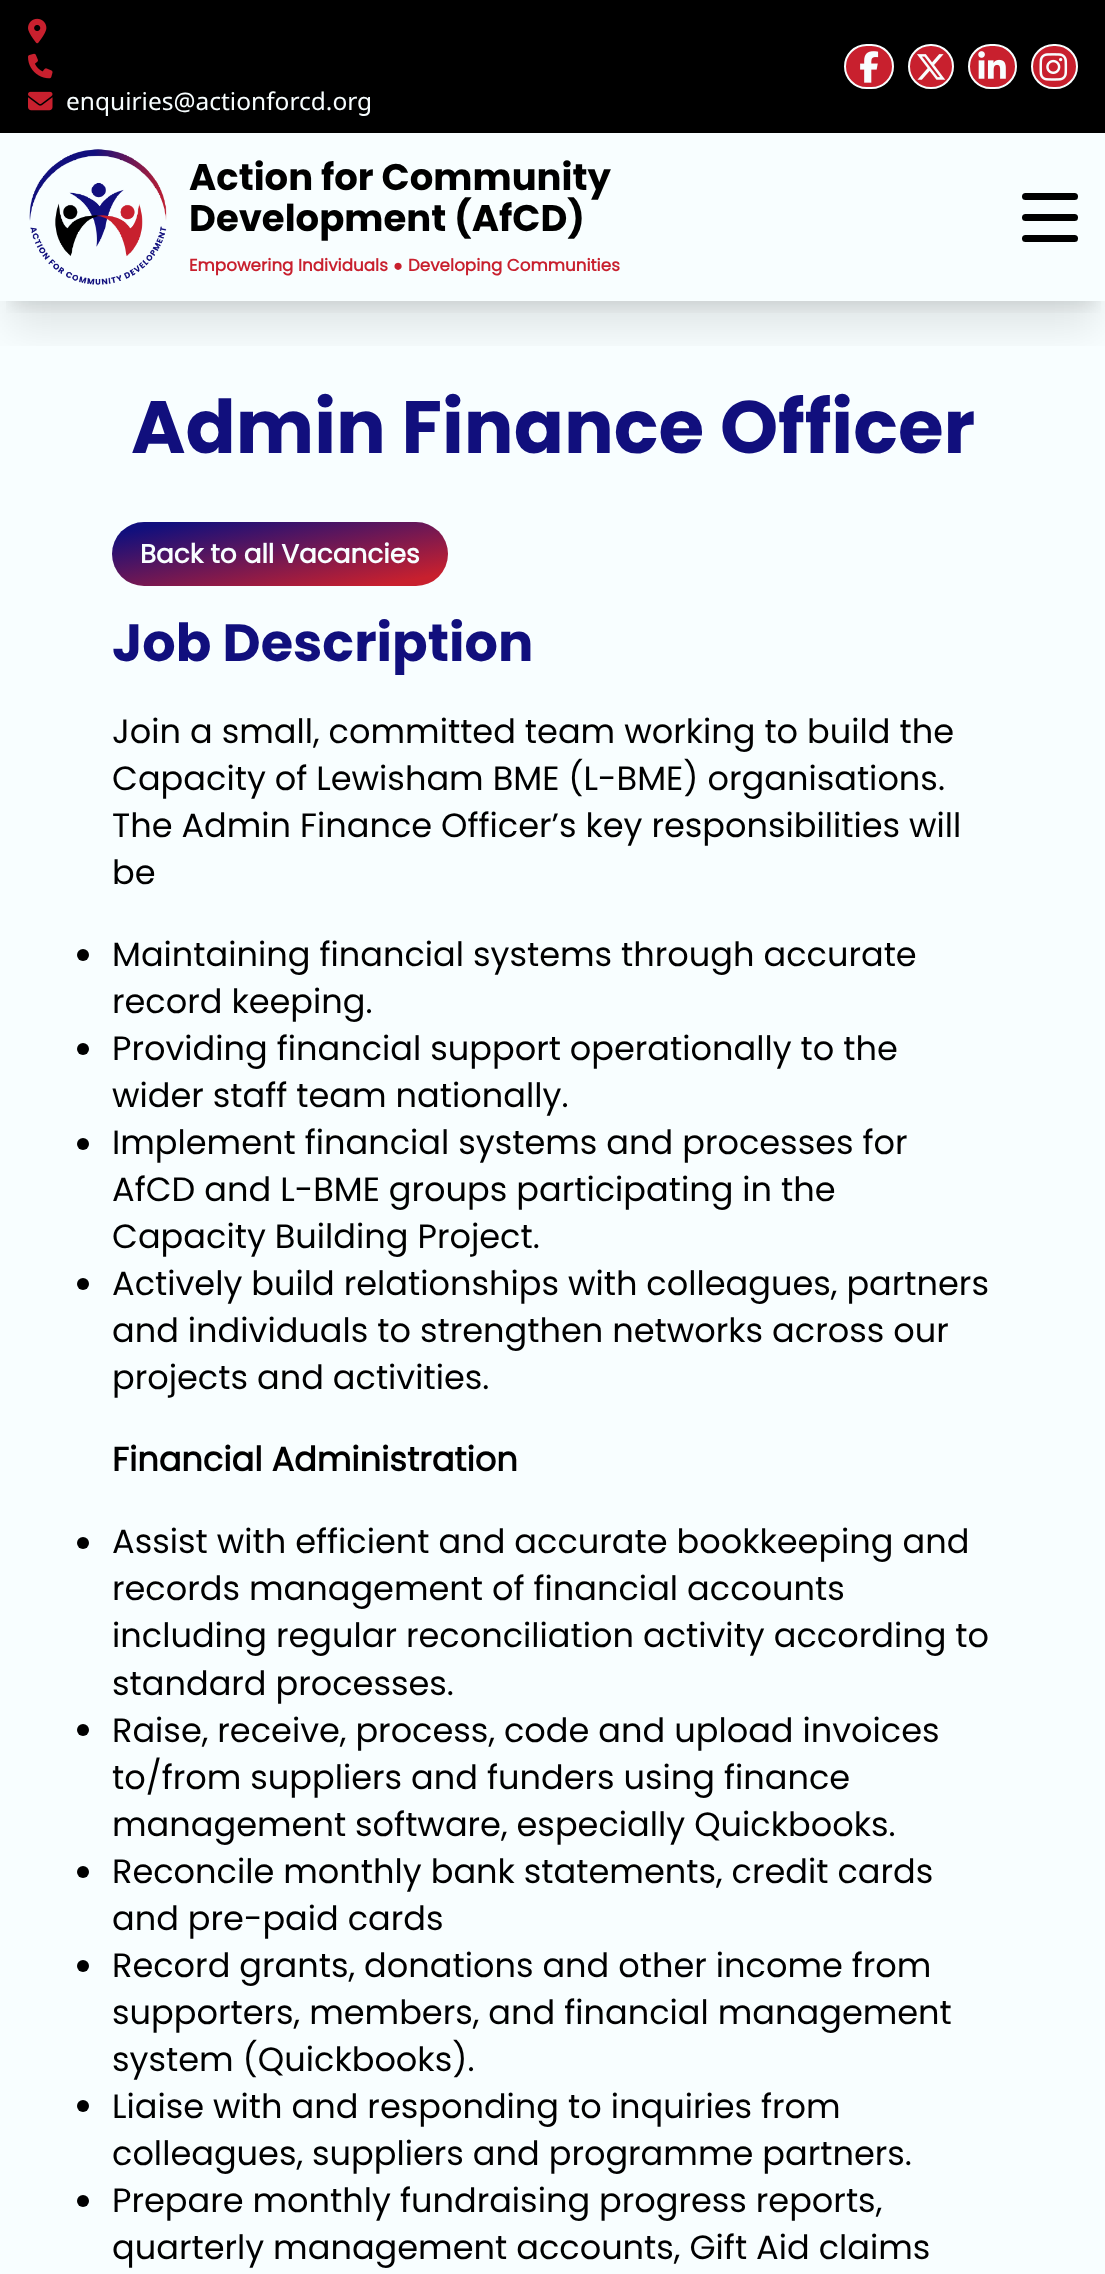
<!DOCTYPE html>
<meta charset="utf-8">
<style>body { margin: 0 } canvas { display: block }</style>
<canvas id="canvas" width="1105" height="2274"></canvas>
<script type="module">
  const canvas = document.getElementById("canvas");
  const g = canvas.getContext("2d");
  g.miterLimit = 4;
  g.fontKerning = "normal";
  function drawText(s, x, y, [font, color]) {
    g.font = font;
    g.fillStyle = color;
    g.fillText(s, x, y);
  }
  function fillBox(x, y, w, h, color) {
    g.fillStyle = color;
    g.fillRect(x, y, w, h);
  }
  function fillRounded(x, y, w, h, r, color) {
    g.fillStyle = color;
    g.beginPath();
    g.roundRect(x, y, w, h, r);
    g.fill();
  }
  async function drawPicture(src, x, y, w, h) {
    const img = new Image();
    img.src = src;
    await img.decode();
    g.drawImage(img, x, y, w, h);
  }
  let gradient;

  const s1 = ["24.5px Noto Sans", "#F8FEFF"];
  const s2 = ["bold 37px Poppins", "#000000"];
  const s3 = ["bold 16.75px 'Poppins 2'", "#C8202E"];
  const s4 = ["bold 16.75px Liberation Serif", "#C8202E"];
  const s5 = ["bold 74px Poppins", "#110F7D"];
  const s6 = ["bold 26.25px 'Poppins 2'", "#F8FEFF"];
  const s7 = ["bold 52.5px Poppins", "#110F7D"];
  const s8 = ["33.6px Poppins", "#000000"];
  const s9 = ["bold 33.6px 'Poppins 2'", "#000000"];

  fillBox(0, 0, 1105, 2274, "#F8FEFF");
  fillBox(0, 0, 1105, 133, "#000000");
  g.fillStyle = "#C8202E";
  g.beginPath();
  g.roundRect(845, 45, 48, 43, 21.5);
  g.fill();
  g.strokeStyle = "#F8FEFF";
  g.lineWidth = 2;
  g.stroke();
  await drawPicture("pic1.png", 860, 51, 19, 32);
  g.beginPath();
  g.roundRect(909, 45, 44, 43, 21.5);
  g.fill();
  g.stroke();
  await drawPicture("pic2.png", 917, 54, 29, 26);
  g.beginPath();
  g.roundRect(969, 45, 47, 43, 21.5);
  g.fill();
  g.stroke();
  await drawPicture("pic3.png", 978, 51, 28, 28);
  g.beginPath();
  g.roundRect(1032, 45, 45, 43, 21.5);
  g.fill();
  g.stroke();
  await drawPicture("pic4.png", 1039, 53, 29, 28);
  await drawPicture("pic5.png", 28, 18, 19, 26);
  await drawPicture("pic6.png", 28, 53, 25, 26);
  await drawPicture("pic7.png", 28, 91, 25, 20);
  drawText("enquiries@actionforcd.org", 66, 110, s1);
  g.save();
  g.beginPath();
  g.rect(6, 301, 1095, 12);
  g.clip();
  g.fillStyle = "rgba(0, 0, 0, 0.1)";
  g.filter = "blur(9px)";
  g.beginPath();
  g.rect(11, 158, 1085, 147);
  g.fill();
  g.filter = "none";
  g.restore();
  g.save();
  g.beginPath();
  g.rect(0, 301, 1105, 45);
  g.clip();
  g.fillStyle = "rgba(0, 0, 0, 0.1)";
  g.filter = "blur(22px)";
  g.beginPath();
  g.rect(9, 177, 1088, 150);
  g.fill();
  g.filter = "none";
  g.restore();
  await drawPicture("pic8.png", 29, 149, 138, 136);
  drawText("Action for Community", 189, 190, s2);
  drawText("Development (AfCD)", 189, 231, s2);
  drawText("Empowering Individuals", 189, 271, s3);
  drawText("●", 393, 271, s4);
  drawText("Developing Communities", 408, 271, s3);
  fillRounded(1022, 214, 56, 7, 3.5, "#000000");
  fillRounded(1022, 193, 56, 7, 3.5, "#000000");
  fillRounded(1022, 235, 56, 7, 3.5, "#000000");
  drawText("Admin Finance Officer", 131, 453, s5);
  gradient = g.createLinearGradient(268, 491, 292, 616);
  gradient.addColorStop(0.1, "#110F7D");
  gradient.addColorStop(0.9, "#C8202E");
  g.fillStyle = gradient;
  g.beginPath();
  g.roundRect(112, 522, 336, 64, 32);
  g.fill();
  drawText("Back to all Vacancies", 140, 563, s6);
  drawText("Job Description", 112, 661, s7);
  drawText("Join a small, committed team working to build the", 112, 743, s8);
  drawText("Capacity of Lewisham BME (L-BME) organisations.", 112, 790, s8);
  drawText("The Admin Finance Officer’s key responsibilities will", 112, 837, s8);
  drawText("be", 112, 884, s8);
  g.beginPath();
  g.arc(83, 955, 6, 0, Math.PI * 2);
  g.fill();
  drawText("Maintaining financial systems through accurate", 112, 966, s8);
  drawText("record keeping.", 112, 1013, s8);
  g.beginPath();
  g.arc(83, 1049, 6, 0, Math.PI * 2);
  g.fill();
  drawText("Providing financial support operationally to the", 112, 1060, s8);
  drawText("wider staff team nationally.", 112, 1107, s8);
  g.beginPath();
  g.arc(83, 1144, 6, 0, Math.PI * 2);
  g.fill();
  drawText("Implement financial systems and processes for", 112, 1154, s8);
  drawText("AfCD and L-BME groups participating in the", 112, 1201, s8);
  drawText("Capacity Building Project.", 112, 1248, s8);
  g.beginPath();
  g.arc(83, 1284, 6, 0, Math.PI * 2);
  g.fill();
  drawText("Actively build relationships with colleagues, partners", 112, 1295, s8);
  drawText("and individuals to strengthen networks across our", 112, 1342, s8);
  drawText("projects and activities.", 112, 1389, s8);
  drawText("Financial Administration", 112, 1471, s9);
  g.beginPath();
  g.arc(83, 1543, 6, 0, Math.PI * 2);
  g.fill();
  drawText("Assist with efficient and accurate bookkeeping and", 112, 1553, s8);
  drawText("records management of financial accounts", 112, 1600, s8);
  drawText("including regular reconciliation activity according to", 112, 1647, s8);
  drawText("standard processes.", 112, 1695, s8);
  g.beginPath();
  g.arc(83, 1730, 6, 0, Math.PI * 2);
  g.fill();
  drawText("Raise, receive, process, code and upload invoices", 112, 1742, s8);
  drawText("to/from suppliers and funders using finance", 112, 1789, s8);
  drawText("management software, especially Quickbooks.", 112, 1836, s8);
  g.beginPath();
  g.arc(83, 1872, 6, 0, Math.PI * 2);
  g.fill();
  drawText("Reconcile monthly bank statements, credit cards", 112, 1883, s8);
  drawText("and pre-paid cards", 112, 1930, s8);
  g.beginPath();
  g.arc(83, 1966, 6, 0, Math.PI * 2);
  g.fill();
  drawText("Record grants, donations and other income from", 112, 1977, s8);
  drawText("supporters, members, and financial management", 112, 2024, s8);
  drawText("system (Quickbooks).", 112, 2071, s8);
  g.beginPath();
  g.arc(83, 2106, 6, 0, Math.PI * 2);
  g.fill();
  drawText("Liaise with and responding to inquiries from", 112, 2118, s8);
  drawText("colleagues, suppliers and programme partners.", 112, 2165, s8);
  g.beginPath();
  g.arc(83, 2201, 6, 0, Math.PI * 2);
  g.fill();
  drawText("Prepare monthly fundraising progress reports,", 112, 2212, s8);
  drawText("quarterly management accounts, Gift Aid claims", 112, 2259, s8);
</script>
